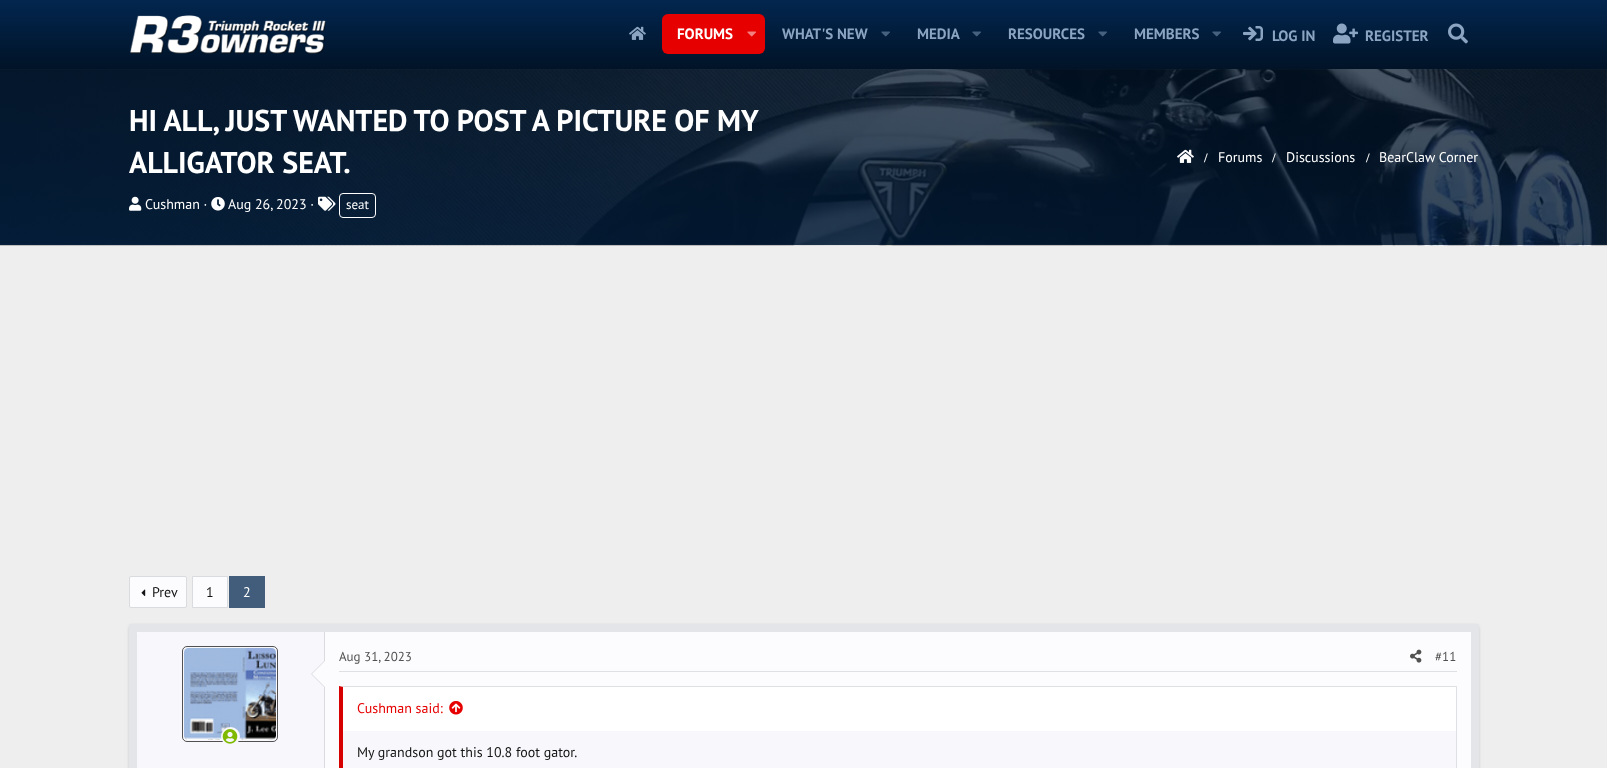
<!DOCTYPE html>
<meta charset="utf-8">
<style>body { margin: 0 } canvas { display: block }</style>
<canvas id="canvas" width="1607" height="768"></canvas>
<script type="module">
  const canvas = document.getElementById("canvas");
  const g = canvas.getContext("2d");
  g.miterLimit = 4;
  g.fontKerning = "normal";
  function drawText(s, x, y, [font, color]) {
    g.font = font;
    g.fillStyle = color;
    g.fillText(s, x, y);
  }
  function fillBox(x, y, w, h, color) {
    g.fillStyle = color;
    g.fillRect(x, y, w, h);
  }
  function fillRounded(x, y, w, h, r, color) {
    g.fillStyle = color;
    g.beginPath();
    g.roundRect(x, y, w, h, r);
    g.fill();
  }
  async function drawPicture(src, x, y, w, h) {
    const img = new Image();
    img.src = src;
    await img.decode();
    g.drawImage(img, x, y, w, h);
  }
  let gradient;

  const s1 = ["bold 15px PT Sans", "#FFFFFF"];
  const s2 = ["bold 15px PT Sans", "#8AA4C1"];
  const s3 = ["bold 30px PT Sans", "#FFFFFF"];
  const s4 = ["14px PT Sans", "#FFFFFF"];
  const s5 = ["13px PT Sans", "#FFFFFF"];
  const s6 = ["bold 13px Liberation Serif", "#FFFFFF"];
  const s7 = ["14px PT Sans", "#141414"];
  const s8 = ["13px PT Sans", "#515151"];
  const s9 = ["14px PT Sans", "#E60000"];

  fillBox(0, 0, 1607, 768, "#EEEEEE");
  gradient = g.createLinearGradient(804, 0, 804, 69);
  gradient.addColorStop(0, "#02264F");
  gradient.addColorStop(1, "#011327");
  g.fillStyle = gradient;
  g.fillRect(0, 0, 1607, 69);
  await drawPicture("pic1.png", 130, 15, 196, 39);
  await drawPicture("pic2.png", 629, 26, 17, 14);
  fillRounded(662, 14, 103, 40, 6, "#E60000");
  drawText("FORUMS", 677, 39, s1);
  await drawPicture("pic3.png", 747, 31, 9, 6);
  drawText("WHAT'S NEW", 782, 39, s2);
  await drawPicture("pic4.png", 881, 31, 9, 6);
  drawText("MEDIA", 917, 39, s2);
  await drawPicture("pic4.png", 972, 31, 9, 6);
  drawText("RESOURCES", 1008, 39, s2);
  await drawPicture("pic4.png", 1098, 31, 9, 6);
  drawText("MEMBERS", 1134, 39, s2);
  await drawPicture("pic4.png", 1212, 31, 9, 6);
  await drawPicture("pic5.png", 1243, 26, 20, 15);
  drawText("LOG IN", 1272, 41, s2);
  await drawPicture("pic6.png", 1333, 23, 25, 21);
  drawText("REGISTER", 1365, 41, s2);
  await drawPicture("pic7.png", 1448, 23, 20, 21);
  await drawPicture("pic8.png", 0, 69, 1607, 177);
  gradient = g.createLinearGradient(784, 331, 823, -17);
  gradient.addColorStop(0, "rgba(2, 29, 59, 0.9)");
  gradient.addColorStop(1, "rgba(1, 19, 39, 0.7)");
  g.fillStyle = gradient;
  g.fillRect(0, 69, 1607, 176);
  drawText("HI ALL, JUST WANTED TO POST A PICTURE OF MY", 129, 131, s3);
  drawText("ALLIGATOR SEAT.", 129, 173, s3);
  await drawPicture("pic9.png", 129, 196, 13, 15);
  drawText("Cushman ·", 145, 209, s4);
  await drawPicture("pic10.png", 211, 197, 14, 14);
  drawText("Aug 26, 2023 ·", 228, 209, s4);
  await drawPicture("pic11.png", 318, 196, 18, 15);
  g.beginPath();
  g.roundRect(339.5, 193.5, 36, 24, 3.5);
  g.strokeStyle = "#FFFFFF";
  g.stroke();
  drawText("seat", 346, 209, s5);
  await drawPicture("pic12.png", 1177, 149, 17, 14);
  drawText("/", 1204, 162, s6);
  drawText("Forums", 1218, 162, s4);
  drawText("/", 1272, 162, s6);
  drawText("Discussions", 1286, 162, s4);
  drawText("/", 1366, 162, s6);
  drawText("BearClaw Corner", 1379, 162, s4);
  g.fillStyle = "#FCFCFE";
  g.beginPath();
  g.roundRect(129.5, 576.5, 57, 31, 1.5);
  g.fill();
  g.strokeStyle = "#D9DBDE";
  g.stroke();
  await drawPicture("pic13.png", 141, 589, 5, 7);
  drawText("Prev", 152, 597, s7);
  g.fillStyle = "#FCFCFE";
  g.beginPath();
  g.rect(192.5, 576.5, 35, 31);
  g.fill();
  g.stroke();
  drawText("1", 206, 597, s7);
  fillBox(229, 576, 36, 32, "#415D7B");
  drawText("2", 243, 597, s4);
  g.fillStyle = "rgba(0, 0, 0, 0.15)";
  g.filter = "blur(1.5px)";
  g.beginPath();
  g.roundRect(129, 625, 1350, 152, 4);
  g.fill();
  g.filter = "none";
  g.fillStyle = "#FCFCFE";
  g.beginPath();
  g.rect(133, 628, 1342, 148);
  g.fill();
  g.strokeStyle = "#E4E5E8";
  g.lineWidth = 8;
  g.stroke();
  g.fillStyle = "#F8F8FC";
  g.beginPath();
  g.moveTo(140, 632);
  g.lineTo(325, 632);
  g.lineTo(325, 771);
  g.lineTo(140, 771);
  g.bezierCurveTo(138.5, 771, 137, 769.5, 137, 768);
  g.lineTo(137, 635);
  g.bezierCurveTo(137, 633.5, 138.5, 632, 140, 632);
  g.closePath();
  g.fill();
  fillBox(324, 632, 1, 136, "#D9DBDE");
  g.beginPath();
  g.roundRect(182.5, 646.5, 95, 95, 4.5);
  g.strokeStyle = "#515151";
  g.lineWidth = 1;
  g.stroke();
  await drawPicture("pic14.png", 184, 648, 92, 92);
  g.fillStyle = "#F8F8FC";
  g.beginPath();
  g.arc(230.5, 736.5, 8.5, 0, Math.PI * 2);
  g.fill();
  g.strokeStyle = "#F8F8FC";
  g.lineWidth = 2;
  g.stroke();
  await drawPicture("pic15.png", 222, 729, 16, 15);
  g.fillStyle = "#D9DBDE";
  g.beginPath();
  g.moveTo(325, 660);
  g.lineTo(325, 688);
  g.lineTo(311, 674);
  g.closePath();
  g.fill();
  g.fillStyle = "#FCFCFE";
  g.beginPath();
  g.moveTo(325, 661);
  g.lineTo(325, 687);
  g.lineTo(312, 674);
  g.closePath();
  g.fill();
  fillBox(339, 671, 1118, 1, "#DFE0E3");
  drawText("Aug 31, 2023", 339, 661, s8);
  await drawPicture("pic16.png", 1410, 649, 12, 14);
  drawText("#11", 1435, 661, s8);
  fillBox(343, 731, 1113, 37, "#F8F8FC");
  g.fillStyle = "#DFE0E3";
  g.beginPath();
  g.moveTo(339, 686);
  g.lineTo(1457, 686);
  g.lineTo(1456, 687);
  g.lineTo(343, 687);
  g.closePath();
  g.fill();
  fillBox(1456, 686, 1, 82, "#DFE0E3");
  g.fillStyle = "#D70000";
  g.beginPath();
  g.moveTo(339, 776);
  g.lineTo(339, 686);
  g.lineTo(343, 687);
  g.lineTo(343, 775);
  g.closePath();
  g.fill();
  fillBox(343, 687, 1113, 44, "#FFFFFF");
  drawText("Cushman said:", 357, 713, s9);
  await drawPicture("pic17.png", 449, 701, 14, 14);
  drawText("My grandson got this 10.8 foot gator.", 357, 757, s7);
</script>
